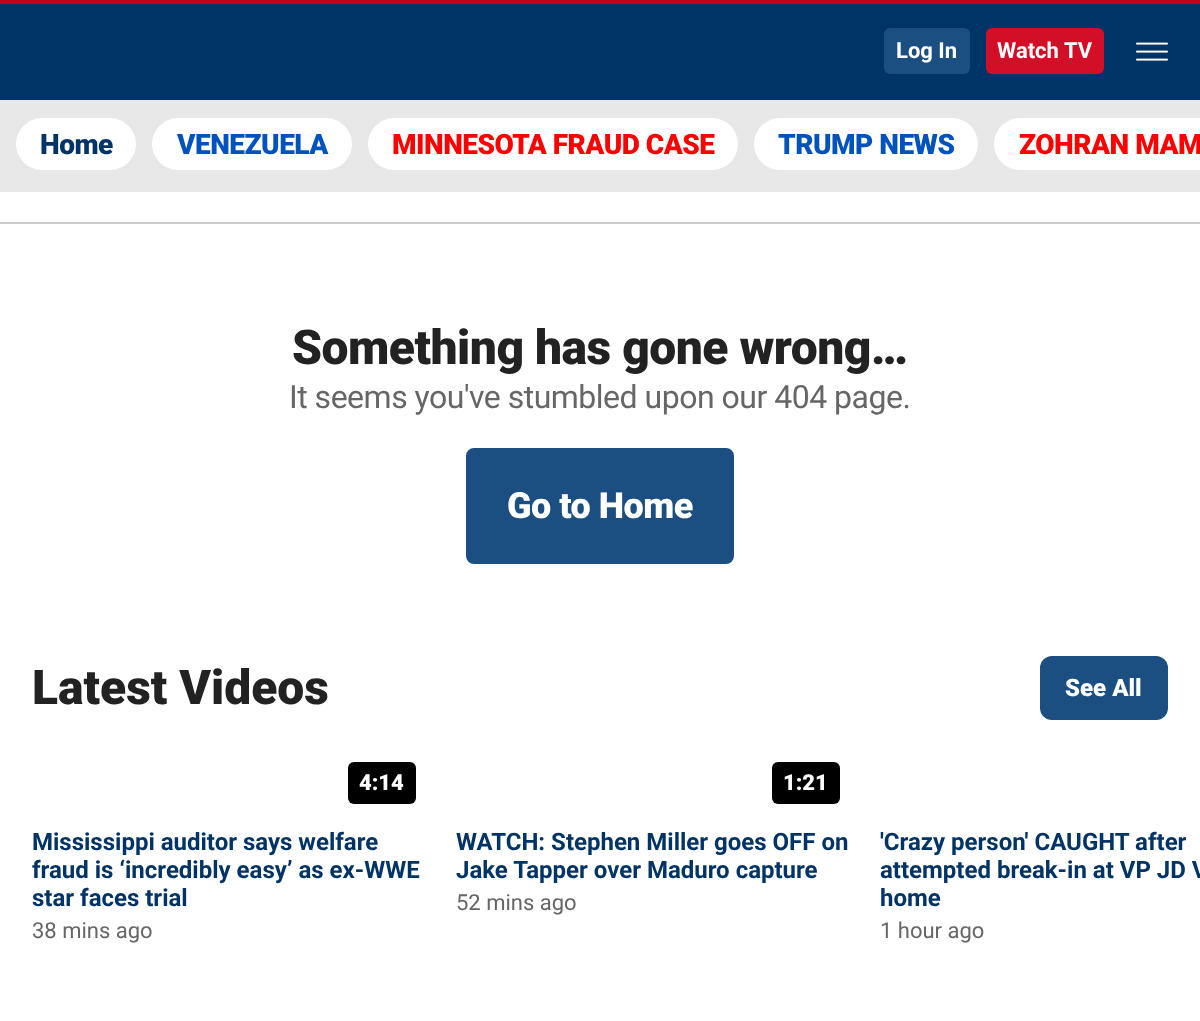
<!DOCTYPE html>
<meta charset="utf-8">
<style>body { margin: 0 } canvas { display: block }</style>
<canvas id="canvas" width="1200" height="1021"></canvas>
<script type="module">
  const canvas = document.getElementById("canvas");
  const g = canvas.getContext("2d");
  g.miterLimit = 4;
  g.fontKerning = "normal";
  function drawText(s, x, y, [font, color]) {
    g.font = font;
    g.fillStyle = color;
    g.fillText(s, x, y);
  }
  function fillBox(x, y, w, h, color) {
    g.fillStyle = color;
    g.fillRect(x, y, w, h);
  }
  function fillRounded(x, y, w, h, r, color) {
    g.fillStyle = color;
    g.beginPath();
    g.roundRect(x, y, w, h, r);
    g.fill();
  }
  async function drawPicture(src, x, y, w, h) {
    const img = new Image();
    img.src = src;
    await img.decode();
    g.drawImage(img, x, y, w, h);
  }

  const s1 = ["bold 22px Roboto", "#FFFFFF"];
  const s2 = ["900 28px Roboto", "#003366"];
  const s3 = ["900 28px Roboto", "#0052BD"];
  const s4 = ["900 28px Roboto", "#FF0000"];
  const s5 = ["900 48px Roboto", "#222222"];
  const s6 = ["32px Roboto", "#666666"];
  const s7 = ["900 36px Roboto", "#FFFFFF"];
  const s8 = ["900 24px Roboto", "#FFFFFF"];
  const s9 = ["900 22px Roboto", "#FFFFFF"];
  const s10 = ["bold 24px Roboto", "#003366"];
  const s11 = ["22px Roboto", "#666666"];

  fillBox(0, 0, 1200, 1021, "#FFFFFF");
  fillBox(0, 0, 1200, 4, "#C20017");
  fillBox(0, 4, 1200, 96, "#003366");
  fillRounded(884, 28, 86, 46, 6, "#1B4E81");
  drawText("Log In", 896, 58, s1);
  fillRounded(986, 28, 118, 46, 6, "#D20F26");
  drawText("Watch", 997, 58, s1);
  drawText("TV", 1064, 58, s1);
  await drawPicture("pic1.png", 1136, 42, 32, 19);
  fillBox(0, 222, 1200, 2, "#CCCCCC");
  fillBox(0, 100, 1200, 92, "#E8E8E8");
  fillRounded(16, 118, 120, 52, 26, "#FFFFFF");
  g.letterSpacing = "-0.5px";
  drawText("Home", 40, 154, s2);
  fillRounded(152, 118, 200, 52, 26, "#FFFFFF");
  drawText("VENEZUELA", 177, 154, s3);
  fillRounded(368, 118, 370, 52, 26, "#FFFFFF");
  drawText("MINNESOTA FRAUD CASE", 392, 154, s4);
  fillRounded(754, 118, 224, 52, 26, "#FFFFFF");
  drawText("TRUMP NEWS", 778, 154, s3);
  g.fillStyle = "#FFFFFF";
  g.beginPath();
  g.roundRect(994, 118, 206, 52, [26, 0, 0, 26]);
  g.fill();
  drawText("ZOHRAN MAM", 1019, 154, s4);
  drawText("Something has gone wrong…", 292, 364, s5);
  drawText("It seems you've stumbled upon our 404 page.", 289, 408, s6);
  g.fillStyle = "#1B4E81";
  g.beginPath();
  g.roundRect(467, 449, 266, 114, 7);
  g.fill();
  g.strokeStyle = "#1B4E81";
  g.lineWidth = 2;
  g.stroke();
  drawText("Go to Home", 507, 518, s7);
  g.letterSpacing = "0px";
  drawText("Latest Videos", 32, 704, s5);
  fillRounded(1040, 656, 128, 64, 12, "#1B4E81");
  drawText("See All", 1065, 696, s8);
  fillRounded(348, 762, 68, 42, 6, "#000000");
  drawText("4:14", 359, 790, s9);
  drawText("Mississippi auditor says welfare", 32, 850, s10);
  drawText("fraud is ‘incredibly easy’ as ex-WWE", 32, 878, s10);
  drawText("star faces trial", 32, 906, s10);
  drawText("38 mins ago", 32, 938, s11);
  fillRounded(772, 762, 68, 42, 6, "#000000");
  drawText("1:21", 783, 790, s9);
  drawText("WATCH: Stephen Miller goes OFF on", 456, 850, s10);
  drawText("Jake Tapper over Maduro capture", 456, 878, s10);
  drawText("52 mins ago", 456, 910, s11);
  drawText("'Crazy person' CAUGHT after", 880, 850, s10);
  drawText("attempted break-in at VP JD V", 880, 878, s10);
  drawText("home", 880, 906, s10);
  drawText("1 hour ago", 880, 938, s11);
</script>
